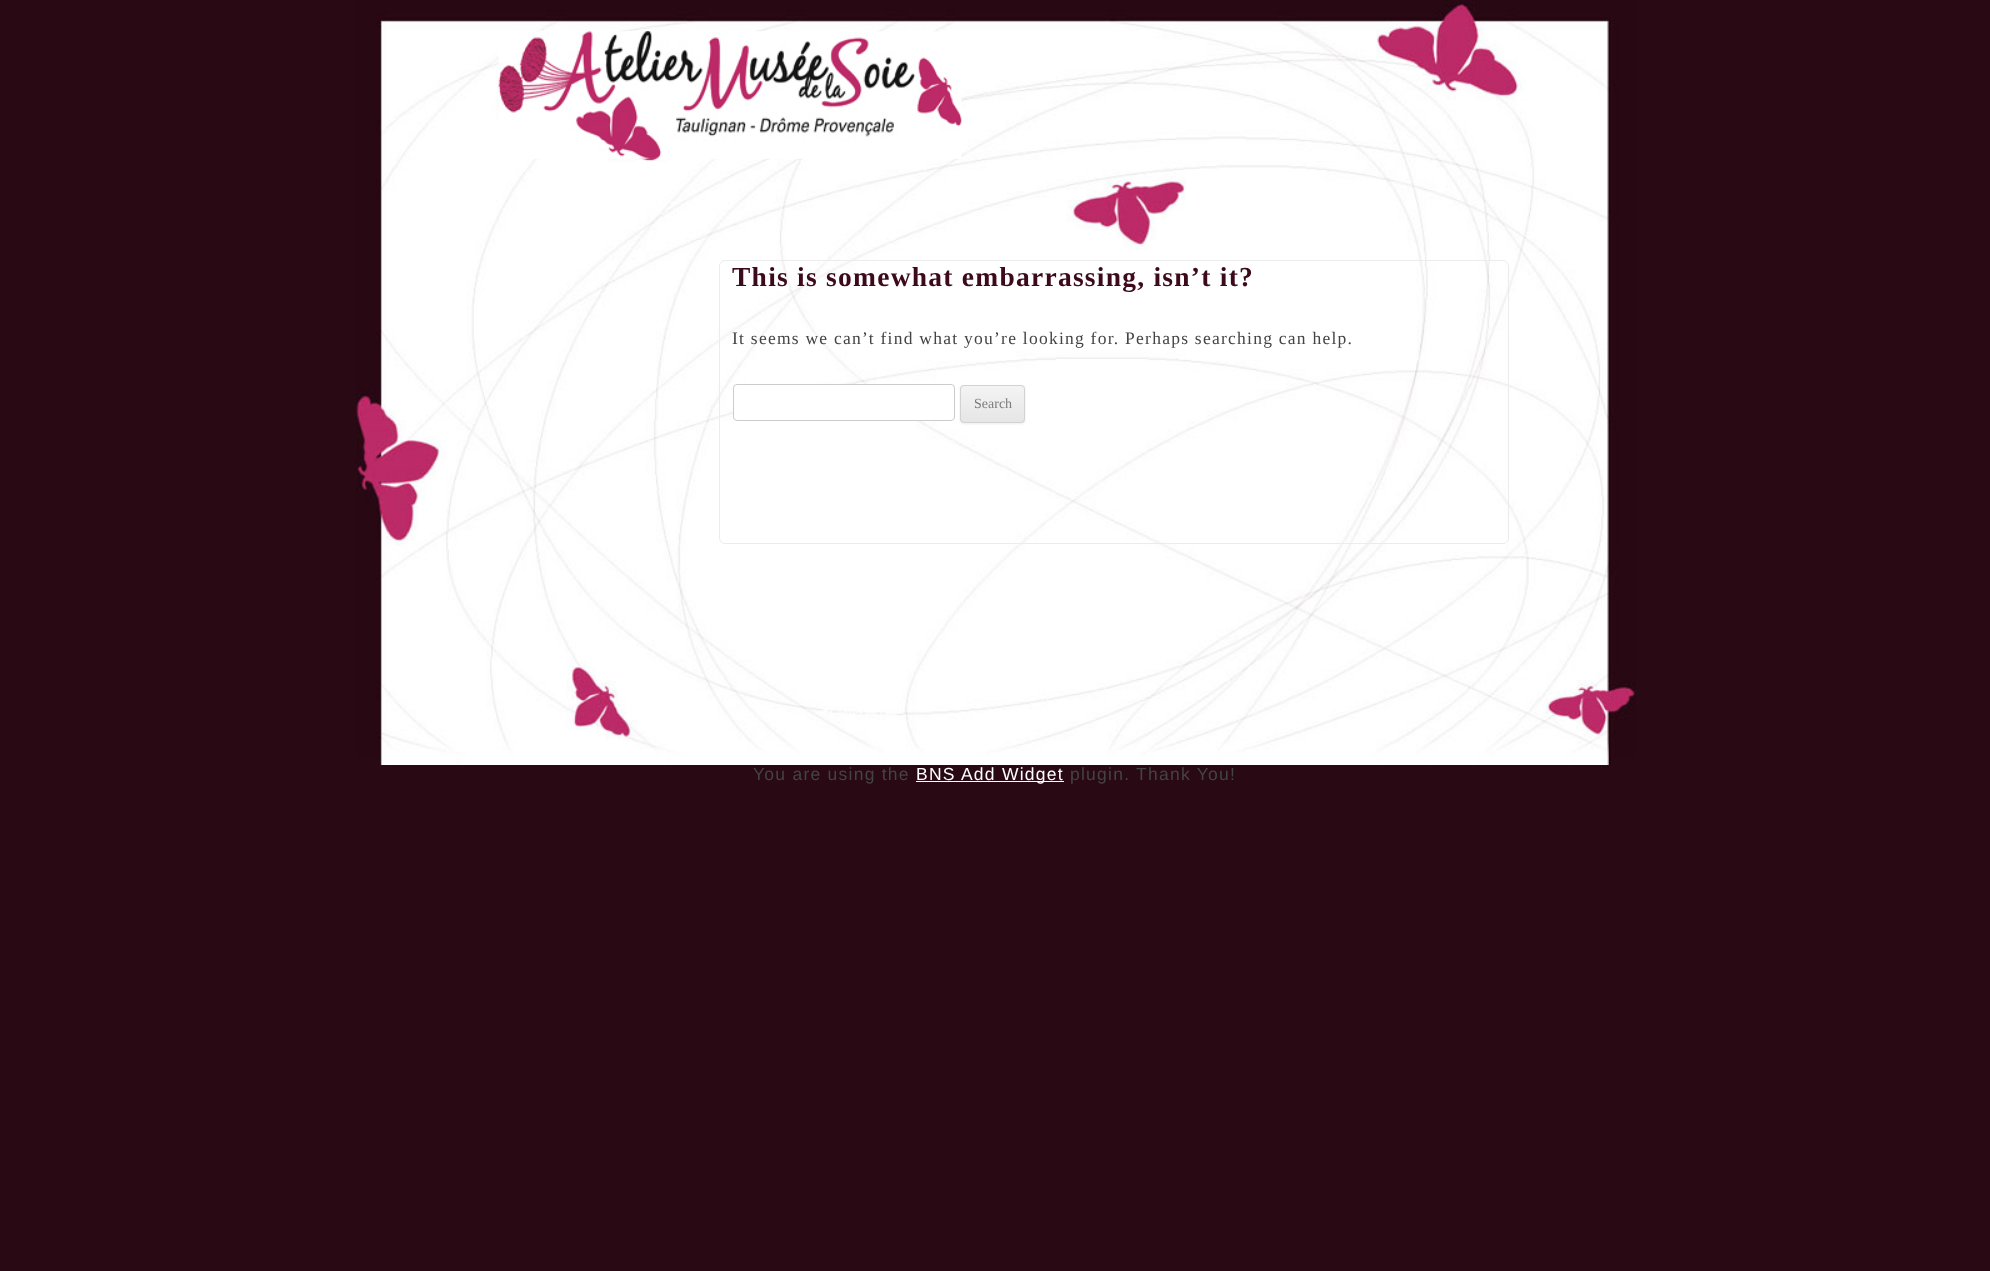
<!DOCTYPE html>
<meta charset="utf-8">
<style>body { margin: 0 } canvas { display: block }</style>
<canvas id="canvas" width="1990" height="1271"></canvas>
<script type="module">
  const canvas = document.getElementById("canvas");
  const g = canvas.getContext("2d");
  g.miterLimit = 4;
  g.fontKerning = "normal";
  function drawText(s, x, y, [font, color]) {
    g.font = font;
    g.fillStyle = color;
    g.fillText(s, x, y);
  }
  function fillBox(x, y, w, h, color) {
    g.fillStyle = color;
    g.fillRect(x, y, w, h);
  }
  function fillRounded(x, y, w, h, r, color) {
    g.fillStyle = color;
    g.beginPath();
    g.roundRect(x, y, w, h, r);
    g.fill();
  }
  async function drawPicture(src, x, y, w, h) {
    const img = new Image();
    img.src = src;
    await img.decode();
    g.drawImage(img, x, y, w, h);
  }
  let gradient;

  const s1 = ["bold 27.5px Liberation Serif", "#3D0A1C"];
  const s2 = ["17.5px Liberation Serif", "#444444"];
  const s3 = ["14px Liberation Serif", "#7C7C7C"];
  const s4 = ["17.5px Liberation Sans", "#444444"];
  const s5 = ["17.5px Liberation Sans", "#FFFFFF"];

  fillBox(0, 0, 1990, 1271, "#280914");
  await drawPicture("pic1.png", 380, 757, 1231, 8);
  await drawPicture("pic2.png", 356, 0, 1280, 757);
  await drawPicture("pic3.png", 498, 31, 464, 128);
  g.beginPath();
  g.roundRect(719.5, 260.5, 789, 283, 5.5);
  g.strokeStyle = "#ECECEC";
  g.stroke();
  g.letterSpacing = "1.25px";
  drawText("This is somewhat embarrassing, isn’t it?", 732, 286, s1);
  drawText("It seems we can’t find what you’re looking for. Perhaps searching can help.", 732, 344, s2);
  g.fillStyle = "#FFFFFF";
  g.beginPath();
  g.roundRect(733.5, 384.5, 221, 36, 3.5);
  g.fill();
  g.strokeStyle = "#CCCCCC";
  g.stroke();
  g.fillStyle = "rgba(64, 64, 64, 0.1)";
  g.filter = "blur(1px)";
  g.beginPath();
  g.roundRect(960, 386, 65, 38, 4);
  g.fill();
  g.filter = "none";
  fillRounded(960, 385, 65, 38, 4, "#E6E6E6");
  g.save();
  g.beginPath();
  g.roundRect(960, 385, 65, 38, 4);
  g.clip();
  gradient = g.createLinearGradient(993, 386, 993, 421);
  gradient.addColorStop(0, "#F4F4F4");
  gradient.addColorStop(1, "#E6E6E6");
  g.fillStyle = gradient;
  g.fillRect(960, 386, 65, 35);
  g.restore();
  g.beginPath();
  g.roundRect(960.5, 385.5, 64, 37, 3.5);
  g.strokeStyle = "#D2D2D2";
  g.stroke();
  g.letterSpacing = "0px";
  drawText("Search", 974, 408, s3);
  g.letterSpacing = "1.25px";
  drawText("You are using the", 753, 780, s4);
  fillBox(916, 781, 148, 1, "#FFFFFF");
  drawText("BNS Add Widget", 916, 780, s5);
  drawText("plugin. Thank You!", 1070, 780, s4);
</script>
